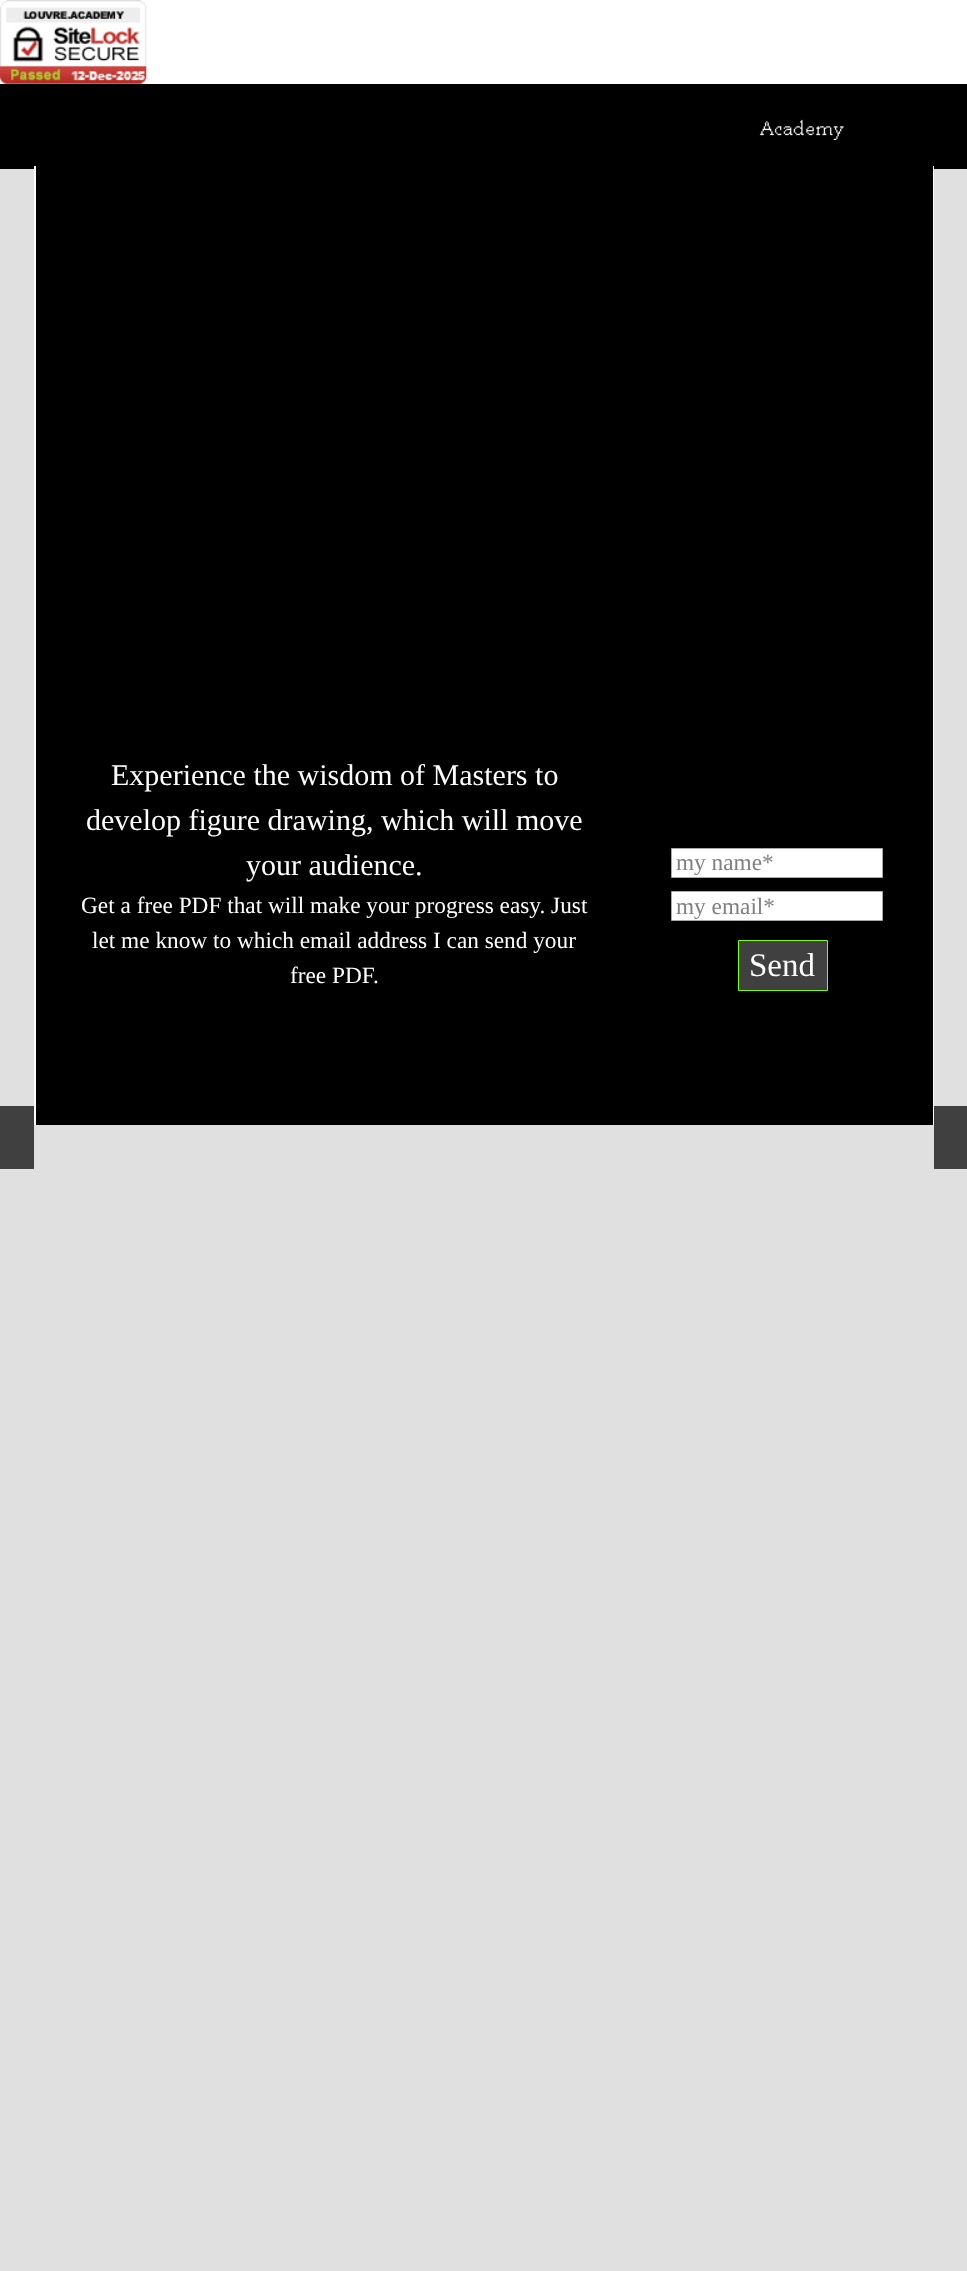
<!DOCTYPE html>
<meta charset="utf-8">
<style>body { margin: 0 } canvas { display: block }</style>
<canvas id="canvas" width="967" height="2271"></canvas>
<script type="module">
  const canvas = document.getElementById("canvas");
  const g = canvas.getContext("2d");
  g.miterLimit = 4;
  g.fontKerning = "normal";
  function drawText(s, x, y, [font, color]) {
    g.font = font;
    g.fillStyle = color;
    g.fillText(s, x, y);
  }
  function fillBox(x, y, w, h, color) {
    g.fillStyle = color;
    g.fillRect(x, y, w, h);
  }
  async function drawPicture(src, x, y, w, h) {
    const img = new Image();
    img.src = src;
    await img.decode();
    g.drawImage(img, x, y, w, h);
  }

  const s1 = ["30px Liberation Serif", "#FFFFFF"];
  const s2 = ["23.3px Liberation Serif", "#FFFFFF"];
  const s3 = ["23.3px Liberation Serif", "#808080"];
  const s4 = ["33px Liberation Serif", "#FFFFFF"];

  fillBox(0, 0, 967, 2271, "#FFFFFF");
  await drawPicture("pic1.png", 0, 0, 147, 84);
  fillBox(0, 169, 967, 2102, "#E0E0E0");
  fillBox(0, 84, 967, 85, "#000000");
  await drawPicture("pic2.png", 759, 119, 85, 21);
  fillBox(0, 1106, 967, 63, "#404040");
  fillBox(34, 166, 900, 959, "#FFFFFF");
  fillBox(36, 166, 897, 549, "#000000");
  fillBox(36, 715, 897, 410, "#000000");
  drawText("Experience the wisdom of Masters to", 111, 785, s1);
  drawText("develop figure drawing, which will move", 86, 830, s1);
  drawText("your audience.", 246, 875, s1);
  drawText("Get a free PDF that will make your progress easy. Just", 81, 913, s2);
  drawText("let me know to which email address I can send your", 92, 948, s2);
  drawText("free PDF.", 290, 983, s2);
  g.beginPath();
  g.rect(671.5, 848.5, 211, 29);
  g.fill();
  g.strokeStyle = "#A9A9A9";
  g.stroke();
  drawText("my name*", 676, 870, s3);
  g.fillStyle = "#FFFFFF";
  g.beginPath();
  g.rect(671.5, 891.5, 211, 29);
  g.fill();
  g.stroke();
  drawText("my email*", 676, 914, s3);
  g.fillStyle = "#404040";
  g.beginPath();
  g.rect(738.5, 940.5, 89, 50);
  g.fill();
  g.strokeStyle = "#80FF00";
  g.stroke();
  drawText("Send", 749, 976, s4);
  fillBox(34, 1125, 900, 44, "#E0E0E0");
</script>
